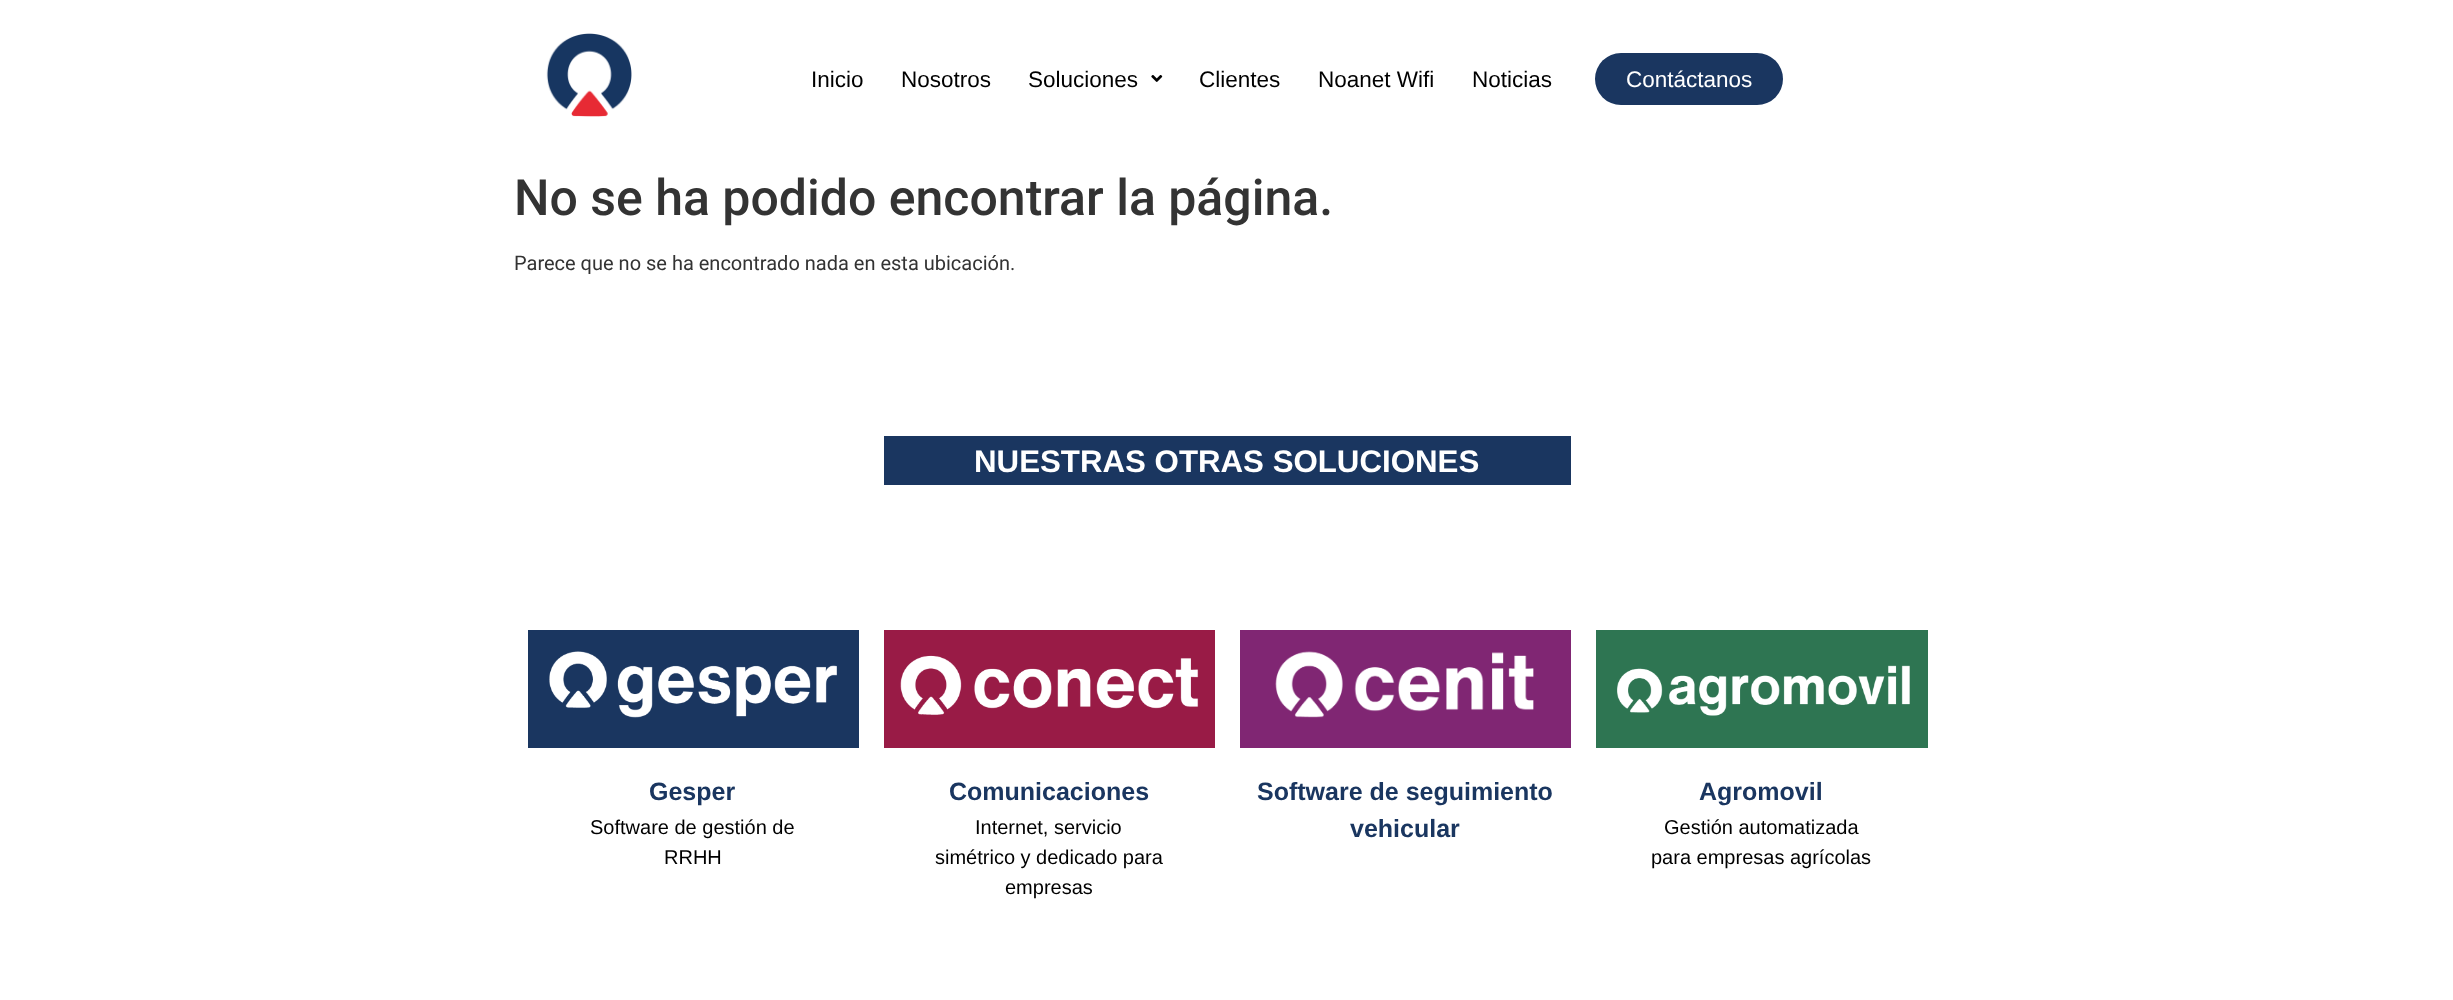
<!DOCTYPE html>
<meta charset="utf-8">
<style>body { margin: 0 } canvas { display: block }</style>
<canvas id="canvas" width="2453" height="1000"></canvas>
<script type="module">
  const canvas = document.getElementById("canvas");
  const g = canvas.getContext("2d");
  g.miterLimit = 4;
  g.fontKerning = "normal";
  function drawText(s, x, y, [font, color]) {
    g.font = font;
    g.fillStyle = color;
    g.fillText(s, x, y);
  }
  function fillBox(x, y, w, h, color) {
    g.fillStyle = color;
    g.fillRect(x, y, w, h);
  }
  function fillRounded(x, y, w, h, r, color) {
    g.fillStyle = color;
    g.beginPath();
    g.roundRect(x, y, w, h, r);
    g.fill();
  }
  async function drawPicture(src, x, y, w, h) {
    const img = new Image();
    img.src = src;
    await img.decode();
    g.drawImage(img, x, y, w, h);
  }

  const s1 = ["22.5px Liberation Sans", "#000000"];
  const s2 = ["22.5px Liberation Sans", "#FFFFFF"];
  const s3 = ["500 50px Roboto", "#333333"];
  const s4 = ["20px Roboto", "#333333"];
  const s5 = ["bold 31.25px Liberation Sans", "#FFFFFF"];
  const s6 = ["bold 25px Liberation Sans", "#1A3660"];
  const s7 = ["20px Liberation Sans", "#000000"];

  fillBox(0, 0, 2453, 1000, "#FFFFFF");
  await drawPicture("pic1.png", 546, 33, 86, 84);
  drawText("Inicio", 811, 87, s1);
  drawText("Nosotros", 901, 87, s1);
  drawText("Soluciones", 1028, 87, s1);
  await drawPicture("pic2.png", 1151, 75, 12, 7);
  drawText("Clientes", 1199, 87, s1);
  drawText("Noanet Wifi", 1318, 87, s1);
  drawText("Noticias", 1472, 87, s1);
  fillRounded(1595, 53, 188, 52, 26, "#1A3660");
  drawText("Contáctanos", 1626, 87, s2);
  drawText("No se ha podido encontrar la página.", 514, 215, s3);
  drawText("Parece que no se ha encontrado nada en esta ubicación.", 514, 270, s4);
  fillBox(884, 436, 687, 49, "#1A3660");
  drawText("NUESTRAS OTRAS SOLUCIONES", 974, 472, s5);
  fillBox(528, 630, 331, 118, "#1A3660");
  await drawPicture("pic3.png", 549, 651, 288, 67);
  drawText("Gesper", 649, 800, s6);
  drawText("Software de gestión de", 590, 834, s7);
  drawText("RRHH", 664, 864, s7);
  fillBox(884, 630, 331, 118, "#991B46");
  await drawPicture("pic4.png", 900, 655, 299, 60);
  drawText("Comunicaciones", 949, 800, s6);
  drawText("Internet, servicio", 975, 834, s7);
  drawText("simétrico y dedicado para", 935, 864, s7);
  drawText("empresas", 1005, 894, s7);
  fillBox(1240, 630, 331, 118, "#802673");
  await drawPicture("pic5.png", 1275, 651, 259, 67);
  drawText("Software de seguimiento", 1257, 800, s6);
  drawText("vehicular", 1350, 837, s6);
  fillBox(1596, 630, 332, 118, "#2E7552");
  await drawPicture("pic6.png", 1617, 665, 293, 51);
  drawText("Agromovil", 1699, 800, s6);
  drawText("Gestión automatizada", 1664, 834, s7);
  drawText("para empresas agrícolas", 1651, 864, s7);
</script>
